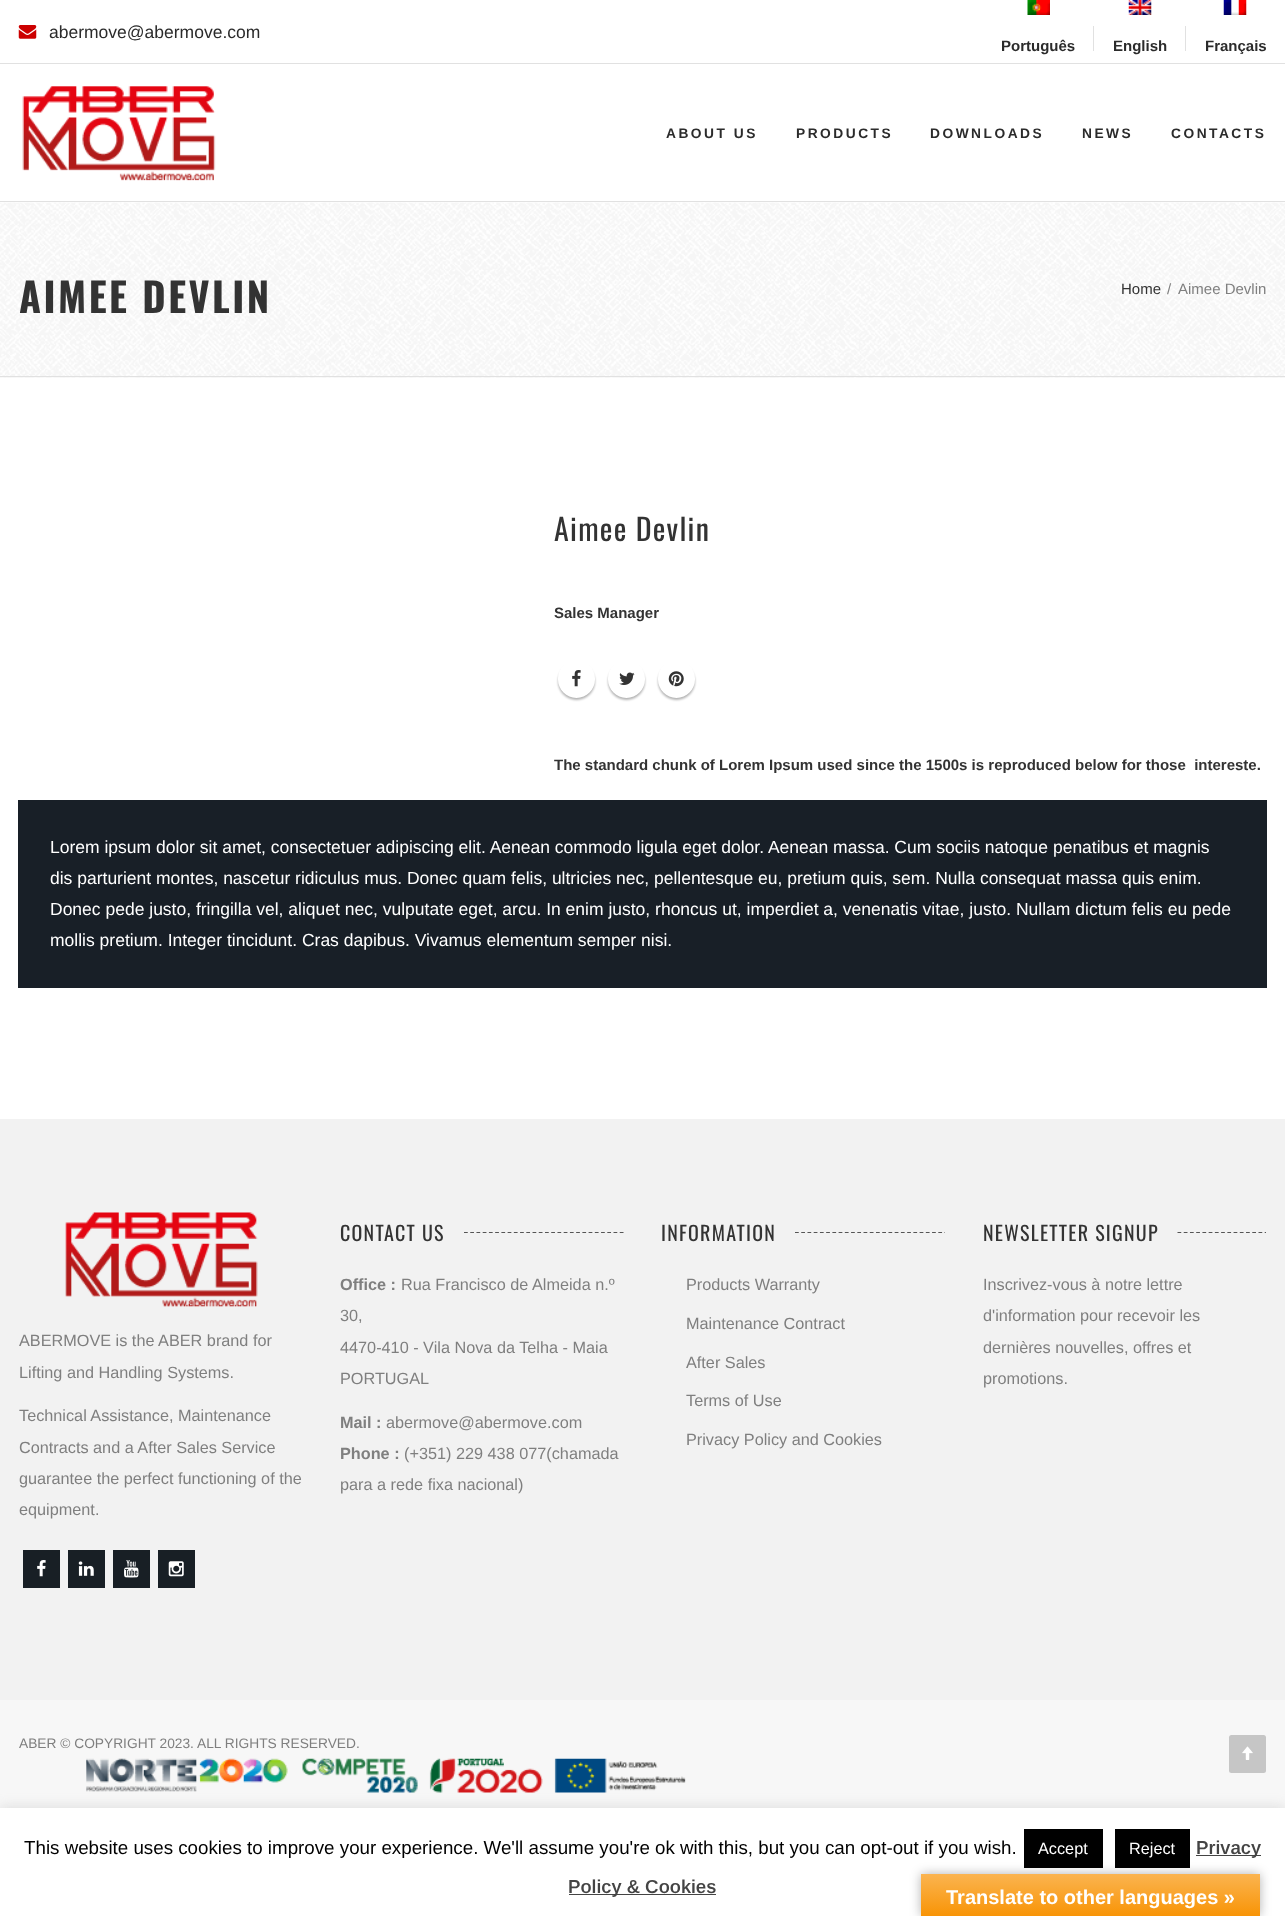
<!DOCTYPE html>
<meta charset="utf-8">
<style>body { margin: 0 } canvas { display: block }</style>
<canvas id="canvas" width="1285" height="1916"></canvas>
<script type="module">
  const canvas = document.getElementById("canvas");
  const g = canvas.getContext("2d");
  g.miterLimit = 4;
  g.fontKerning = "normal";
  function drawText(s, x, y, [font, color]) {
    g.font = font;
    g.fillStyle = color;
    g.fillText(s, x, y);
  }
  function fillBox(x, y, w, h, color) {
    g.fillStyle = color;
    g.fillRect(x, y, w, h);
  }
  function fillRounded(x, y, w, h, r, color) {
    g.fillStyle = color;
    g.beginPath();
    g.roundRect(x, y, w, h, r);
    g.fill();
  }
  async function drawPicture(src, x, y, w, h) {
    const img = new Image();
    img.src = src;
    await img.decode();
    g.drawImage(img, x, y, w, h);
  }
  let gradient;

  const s1 = ["17.5px Arimo", "#2B2B2B"];
  const s2 = ["bold 15px Arimo", "#2B2B2B"];
  const s3 = ["bold 13.75px Arimo", "#2B2B2B"];
  const s4 = ["bold 40px Oswald", "#333333"];
  const s5 = ["15px Arimo", "#333333"];
  const s6 = ["15px Arimo", "#7F7F7F"];
  const s7 = ["30px Oswald", "#333333"];
  const s8 = ["bold 15px Arimo", "#333333"];
  const s9 = ["17.5px Arimo", "#FFFFFF"];
  const s10 = ["20px Oswald", "#333333"];
  const s11 = ["bold 16.25px Arimo", "#7F7F7F"];
  const s12 = ["16.25px Arimo", "#7F7F7F"];
  const s13 = ["13.75px Arimo", "#7F7F7F"];
  const s14 = ["18.75px Arimo", "#000000"];
  const s15 = ["16.25px Arimo", "#FFFFFF"];
  const s16 = ["600 18.75px Arimo", "#444444"];
  const s17 = ["bold 20px Liberation Sans", "#FFFFFF"];

  fillBox(0, 0, 1285, 1916, "#FFFFFF");
  fillBox(0, 63, 1285, 1, "#E1E1E1");
  await drawPicture("pic1.png", 18, 25, 19, 14);
  drawText("abermove@abermove.com", 49, 38, s1);
  await drawPicture("pic2.png", 1027, 0, 23, 15);
  drawText("Português", 1001, 51, s2);
  fillBox(1093, 26, 1, 25, "#E1E1E1");
  await drawPicture("pic3.png", 1128, 0, 24, 15);
  drawText("English", 1113, 51, s2);
  fillBox(1185, 26, 1, 25, "#E1E1E1");
  await drawPicture("pic4.png", 1223, 0, 24, 15);
  drawText("Français", 1205, 51, s2);
  await drawPicture("pic5.png", 22, 86, 194, 95);
  g.letterSpacing = "2.5px";
  drawText("ABOUT US", 666, 138, s3);
  drawText("PRODUCTS", 796, 138, s3);
  drawText("DOWNLOADS", 930, 138, s3);
  drawText("NEWS", 1082, 138, s3);
  drawText("CONTACTS", 1171, 138, s3);
  fillBox(0, 201, 1285, 1, "#E1E1E1");
  fillBox(0, 377, 1285, 1, "#F7F7F7");
  await drawPicture("pic6.png", 0, 202, 1285, 176);
  fillBox(0, 376, 1285, 1, "#E1E1E1");
  drawText("AIMEE DEVLIN", 19, 313, s4);
  g.letterSpacing = "0px";
  drawText("Home", 1121, 294, s5);
  drawText("/", 1167, 294, s6);
  drawText("Aimee Devlin", 1178, 294, s6);
  g.letterSpacing = "1.25px";
  drawText("Aimee Devlin", 554, 541, s7);
  g.letterSpacing = "0px";
  drawText("Sales Manager", 554, 618, s8);
  g.save();
  g.beginPath();
  g.moveTo(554, 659);
  g.lineTo(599, 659);
  g.lineTo(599, 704);
  g.lineTo(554, 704);
  g.closePath();
  g.moveTo(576.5, 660);
  g.bezierCurveTo(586.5, 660, 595, 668.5, 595, 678.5);
  g.lineTo(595, 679.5);
  g.bezierCurveTo(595, 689.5, 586.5, 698, 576.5, 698);
  g.bezierCurveTo(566.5, 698, 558, 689.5, 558, 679.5);
  g.lineTo(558, 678.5);
  g.bezierCurveTo(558, 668.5, 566.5, 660, 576.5, 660);
  g.closePath();
  g.clip("evenodd");
  g.fillStyle = "rgba(0, 0, 0, 0.3)";
  g.filter = "blur(1px)";
  g.beginPath();
  g.roundRect(558, 663, 37, 37, 18.5);
  g.fill();
  g.filter = "none";
  g.restore();
  await drawPicture("pic7.png", 572, 670, 9, 17);
  g.save();
  g.beginPath();
  g.moveTo(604, 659);
  g.lineTo(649, 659);
  g.lineTo(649, 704);
  g.lineTo(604, 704);
  g.closePath();
  g.moveTo(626.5, 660);
  g.bezierCurveTo(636.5, 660, 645, 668.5, 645, 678.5);
  g.lineTo(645, 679.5);
  g.bezierCurveTo(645, 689.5, 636.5, 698, 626.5, 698);
  g.bezierCurveTo(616.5, 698, 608, 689.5, 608, 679.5);
  g.lineTo(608, 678.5);
  g.bezierCurveTo(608, 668.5, 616.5, 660, 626.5, 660);
  g.closePath();
  g.clip("evenodd");
  g.fillStyle = "rgba(0, 0, 0, 0.3)";
  g.filter = "blur(1px)";
  g.beginPath();
  g.roundRect(608, 663, 37, 37, 18.5);
  g.fill();
  g.filter = "none";
  g.restore();
  await drawPicture("pic8.png", 619, 672, 16, 13);
  g.save();
  g.beginPath();
  g.moveTo(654, 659);
  g.lineTo(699, 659);
  g.lineTo(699, 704);
  g.lineTo(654, 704);
  g.closePath();
  g.moveTo(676.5, 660);
  g.bezierCurveTo(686.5, 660, 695, 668.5, 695, 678.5);
  g.lineTo(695, 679.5);
  g.bezierCurveTo(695, 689.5, 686.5, 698, 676.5, 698);
  g.bezierCurveTo(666.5, 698, 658, 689.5, 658, 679.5);
  g.lineTo(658, 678.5);
  g.bezierCurveTo(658, 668.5, 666.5, 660, 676.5, 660);
  g.closePath();
  g.clip("evenodd");
  g.fillStyle = "rgba(0, 0, 0, 0.3)";
  g.filter = "blur(1px)";
  g.beginPath();
  g.roundRect(658, 663, 37, 37, 18.5);
  g.fill();
  g.filter = "none";
  g.restore();
  await drawPicture("pic9.png", 668, 671, 16, 16);
  drawText("The standard chunk of Lorem Ipsum used since the 1500s is reproduced below for those  intereste.", 554, 770, s8);
  fillBox(18, 800, 1249, 188, "#181F27");
  drawText("Lorem ipsum dolor sit amet, consectetuer adipiscing elit. Aenean commodo ligula eget dolor. Aenean massa. Cum sociis natoque penatibus et magnis", 50, 853, s9);
  drawText("dis parturient montes, nascetur ridiculus mus. Donec quam felis, ultricies nec, pellentesque eu, pretium quis, sem. Nulla consequat massa quis enim.", 50, 884, s9);
  drawText("Donec pede justo, fringilla vel, aliquet nec, vulputate eget, arcu. In enim justo, rhoncus ut, imperdiet a, venenatis vitae, justo. Nullam dictum felis eu pede", 50, 915, s9);
  drawText("mollis pretium. Integer tincidunt. Cras dapibus. Vivamus elementum semper nisi.", 50, 946, s9);
  fillBox(0, 1119, 1285, 581, "#F2F2F2");
  g.letterSpacing = "1.25px";
  drawText("CONTACT US", 340, 1241, s10);
  g.save();
  g.beginPath();
  g.rect(340, 1206, 284, 53);
  g.clip();
  g.beginPath();
  g.moveTo(464, 1232.5);
  g.lineTo(747.5, 1232.5);
  g.strokeStyle = "#555555";
  g.lineWidth = 1.2;
  g.setLineDash([3.75, 2.48]);
  g.stroke();
  g.restore();
  g.letterSpacing = "0px";
  drawText("Office :", 340, 1290, s11);
  drawText("Rua Francisco de Almeida n.º", 401, 1290, s12);
  drawText("30,", 340, 1321, s12);
  drawText("4470-410 - Vila Nova da Telha - Maia", 340, 1353, s12);
  drawText("PORTUGAL", 340, 1384, s12);
  drawText("Mail :", 340, 1428, s11);
  drawText("abermove@abermove.com", 386, 1428, s12);
  drawText("Phone :", 340, 1459, s11);
  drawText("(+351) 229 438 077(chamada", 404, 1459, s12);
  drawText("para a rede fixa nacional)", 340, 1490, s12);
  g.letterSpacing = "1.25px";
  drawText("INFORMATION", 661, 1241, s10);
  g.save();
  g.beginPath();
  g.rect(661, 1206, 284, 53);
  g.clip();
  g.beginPath();
  g.moveTo(795, 1232.5);
  g.lineTo(1079, 1232.5);
  g.strokeStyle = "#555555";
  g.lineWidth = 1.2;
  g.setLineDash([3.75, 2.48]);
  g.stroke();
  g.restore();
  g.letterSpacing = "0px";
  drawText("Products Warranty", 686, 1290, s12);
  drawText("Maintenance Contract", 686, 1329, s12);
  drawText("After Sales", 686, 1368, s12);
  drawText("Terms of Use", 686, 1406, s12);
  drawText("Privacy Policy and Cookies", 686, 1445, s12);
  g.letterSpacing = "1.25px";
  drawText("NEWSLETTER SIGNUP", 983, 1241, s10);
  g.save();
  g.beginPath();
  g.rect(983, 1206, 283, 53);
  g.clip();
  g.beginPath();
  g.moveTo(1177.5, 1232.5);
  g.lineTo(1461, 1232.5);
  g.strokeStyle = "#555555";
  g.lineWidth = 1.2;
  g.setLineDash([3.75, 2.48]);
  g.stroke();
  g.restore();
  g.letterSpacing = "0px";
  drawText("Inscrivez-vous à notre lettre", 983, 1290, s12);
  drawText("d'information pour recevoir les", 983, 1321, s12);
  drawText("dernières nouvelles, offres et", 983, 1353, s12);
  drawText("promotions.", 983, 1384, s12);
  await drawPicture("pic10.png", 65, 1212, 193, 95);
  drawText("ABERMOVE is the ABER brand for", 19, 1346, s12);
  drawText("Lifting and Handling Systems.", 19, 1378, s12);
  drawText("Technical Assistance, Maintenance", 19, 1421, s12);
  drawText("Contracts and a After Sales Service", 19, 1453, s12);
  drawText("guarantee the perfect functioning of the", 19, 1484, s12);
  drawText("equipment.", 19, 1515, s12);
  fillBox(23, 1550, 37, 38, "#181F25");
  await drawPicture("pic11.png", 37, 1560, 9, 17);
  fillBox(68, 1550, 37, 38, "#181F25");
  await drawPicture("pic12.png", 78, 1561, 16, 15);
  fillBox(113, 1550, 37, 38, "#181F25");
  await drawPicture("pic13.png", 124, 1560, 15, 18);
  fillBox(158, 1550, 37, 38, "#181F25");
  await drawPicture("pic14.png", 168, 1561, 16, 16);
  fillBox(0, 1700, 1285, 108, "#F7F7F7");
  drawText("ABER © COPYRIGHT 2023. ALL RIGHTS RESERVED.", 19, 1748, s13);
  await drawPicture("pic15.png", 86, 1758, 600, 35);
  fillRounded(1229, 1735, 37, 38, 2.5, "#C6C6C6");
  await drawPicture("pic16.png", 1242, 1746, 11, 14);
  g.fillStyle = "rgba(172, 171, 171, 0.3)";
  g.filter = "blur(6px)";
  g.beginPath();
  g.rect(0, 1806, 1285, 109);
  g.fill();
  g.filter = "none";
  fillBox(0, 1808, 1285, 108, "#FFFFFF");
  drawText("This website uses cookies to improve your experience. We'll assume you're ok with this, but you can opt-out if you wish.", 24, 1854, s14);
  fillBox(1024, 1829, 79, 39, "#000000");
  drawText("Accept", 1038, 1854, s15);
  fillBox(1115, 1829, 75, 39, "#000000");
  drawText("Reject", 1129, 1854, s15);
  fillBox(1196, 1855, 65, 1, "#444444");
  drawText("Privacy", 1196, 1854, s16);
  fillBox(569, 1894, 147, 1, "#444444");
  drawText("Policy & Cookies", 568, 1893, s16);
  g.fillStyle = "rgba(0, 0, 0, 0.3)";
  g.filter = "blur(5.5px)";
  g.beginPath();
  g.rect(921, 1874, 339, 42);
  g.fill();
  g.filter = "none";
  gradient = g.createLinearGradient(1091, 1874, 1091, 1916);
  gradient.addColorStop(0, "#FBB450");
  gradient.addColorStop(1, "#F89406");
  g.fillStyle = gradient;
  g.fillRect(921, 1874, 339, 42);
  drawText("Translate to other languages »", 946, 1904, s17);
</script>
